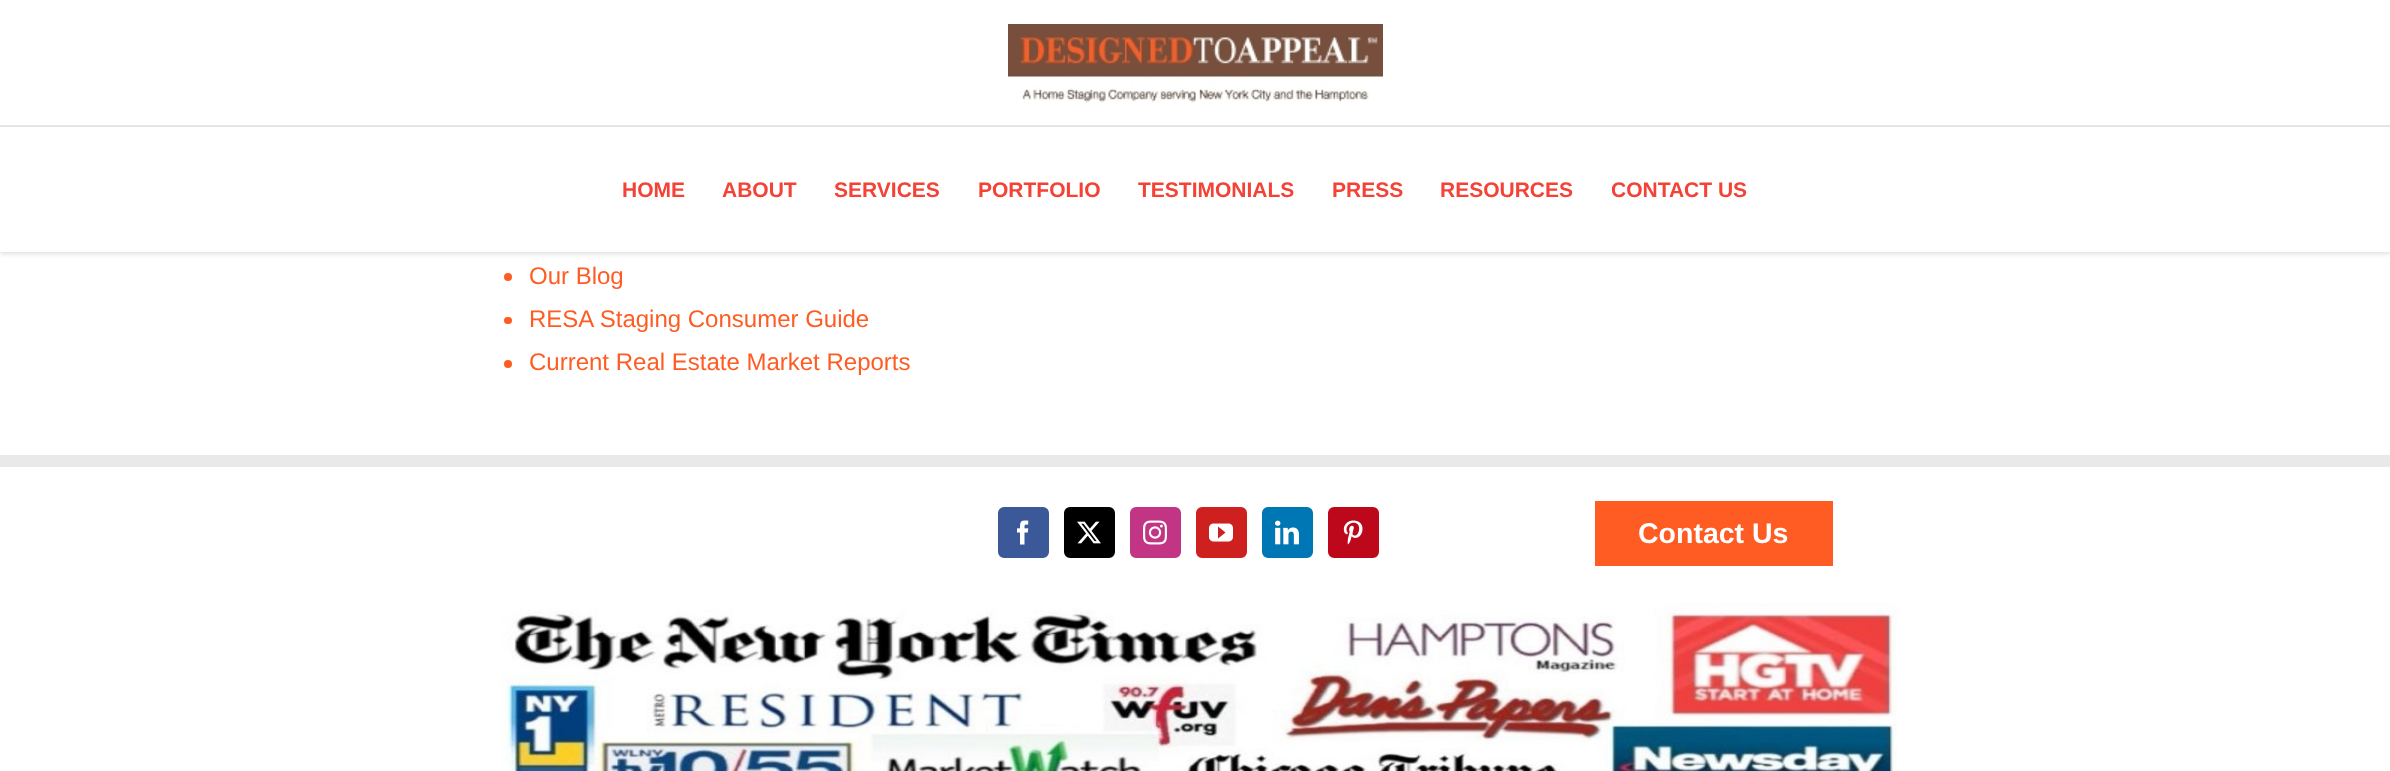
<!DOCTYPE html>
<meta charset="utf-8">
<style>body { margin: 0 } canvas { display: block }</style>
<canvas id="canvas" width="2390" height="771"></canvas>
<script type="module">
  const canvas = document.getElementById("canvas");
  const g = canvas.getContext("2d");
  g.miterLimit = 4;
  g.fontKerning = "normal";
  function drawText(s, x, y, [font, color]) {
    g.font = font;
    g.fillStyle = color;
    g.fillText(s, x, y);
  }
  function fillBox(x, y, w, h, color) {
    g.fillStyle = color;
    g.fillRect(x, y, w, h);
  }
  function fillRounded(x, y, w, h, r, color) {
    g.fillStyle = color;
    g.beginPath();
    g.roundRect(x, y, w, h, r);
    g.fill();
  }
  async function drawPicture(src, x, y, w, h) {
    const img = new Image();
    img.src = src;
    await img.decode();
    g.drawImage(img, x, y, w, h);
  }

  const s1 = ["bold 21px Liberation Sans", "#F44336"];
  const s2 = ["24px Liberation Sans", "#FF5C23"];
  const s3 = ["bold 28.5px Liberation Sans", "#FFFFFF"];

  fillBox(0, 0, 2390, 771, "#FFFFFF");
  g.fillStyle = "rgba(0, 0, 0, 0.12)";
  g.filter = "blur(2px)";
  g.beginPath();
  g.rect(0, 2, 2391, 252);
  g.fill();
  g.filter = "none";
  fillBox(0, 0, 2390, 125, "#FFFFFF");
  fillBox(0, 125, 2390, 2, "#E5E5E5");
  await drawPicture("pic1.png", 1008, 24, 375, 79);
  fillBox(0, 127, 2390, 125, "#FFFFFF");
  drawText("HOME", 622, 197, s1);
  drawText("ABOUT", 722, 197, s1);
  drawText("SERVICES", 834, 197, s1);
  drawText("PORTFOLIO", 978, 197, s1);
  drawText("TESTIMONIALS", 1138, 197, s1);
  drawText("PRESS", 1332, 197, s1);
  drawText("RESOURCES", 1440, 197, s1);
  drawText("CONTACT US", 1611, 197, s1);
  g.fillStyle = "#FF5C23";
  g.beginPath();
  g.arc(508, 277, 4, 0, Math.PI * 2);
  g.fill();
  drawText("Our Blog", 529, 284, s2);
  fillRounded(504, 317, 8, 7, 3.5, "#FF5C23");
  drawText("RESA Staging Consumer Guide", 529, 327, s2);
  g.beginPath();
  g.arc(508, 364, 4, 0, Math.PI * 2);
  g.fill();
  drawText("Current Real Estate Market Reports", 529, 370, s2);
  fillBox(0, 455, 2390, 12, "#EAE9E9");
  g.fillStyle = "#3B5998";
  g.beginPath();
  g.roundRect(999, 508, 49, 49, 5);
  g.fill();
  g.strokeStyle = "#3B5998";
  g.lineWidth = 2;
  g.stroke();
  await drawPicture("pic2.png", 1017, 520, 12, 25);
  g.fillStyle = "#000000";
  g.beginPath();
  g.roundRect(1065, 508, 49, 49, 5);
  g.fill();
  g.strokeStyle = "#000000";
  g.stroke();
  await drawPicture("pic3.png", 1077, 521, 24, 23);
  g.fillStyle = "#C13584";
  g.beginPath();
  g.roundRect(1131, 508, 49, 49, 5);
  g.fill();
  g.strokeStyle = "#C13584";
  g.stroke();
  await drawPicture("pic4.png", 1143, 520, 24, 25);
  g.fillStyle = "#CD201F";
  g.beginPath();
  g.roundRect(1197, 508, 49, 49, 5);
  g.fill();
  g.strokeStyle = "#CD201F";
  g.stroke();
  await drawPicture("pic5.png", 1209, 523, 24, 19);
  g.fillStyle = "#0077B5";
  g.beginPath();
  g.roundRect(1263, 508, 49, 49, 5);
  g.fill();
  g.strokeStyle = "#0077B5";
  g.stroke();
  await drawPicture("pic6.png", 1275, 520, 24, 25);
  g.fillStyle = "#BD081C";
  g.beginPath();
  g.roundRect(1329, 508, 49, 49, 5);
  g.fill();
  g.strokeStyle = "#BD081C";
  g.stroke();
  await drawPicture("pic7.png", 1343, 520, 20, 25);
  fillBox(1595, 501, 238, 65, "#FF5C23");
  drawText("Contact Us", 1638, 543, s3);
  await drawPicture("pic8.png", 501, 603, 1396, 168);
</script>
